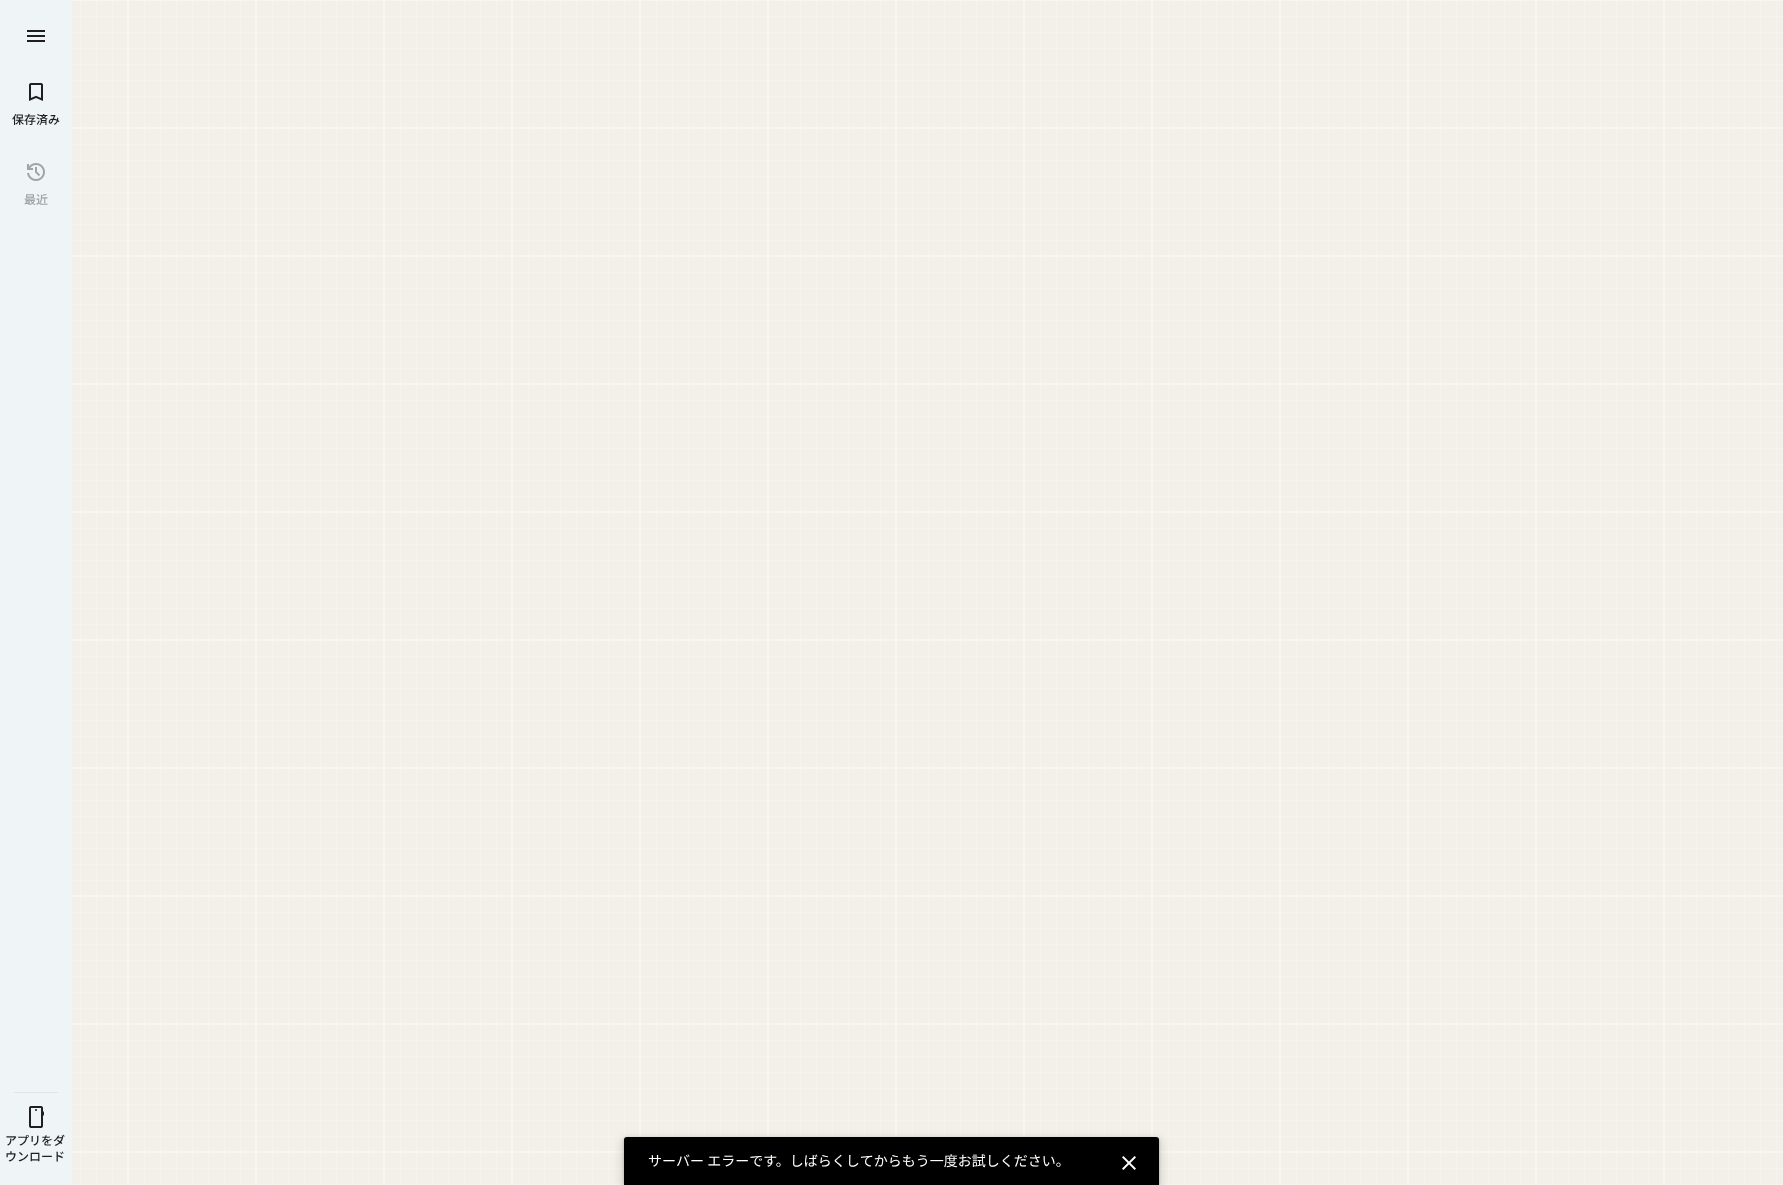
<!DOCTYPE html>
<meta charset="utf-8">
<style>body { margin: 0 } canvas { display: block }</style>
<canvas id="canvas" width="1783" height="1185"></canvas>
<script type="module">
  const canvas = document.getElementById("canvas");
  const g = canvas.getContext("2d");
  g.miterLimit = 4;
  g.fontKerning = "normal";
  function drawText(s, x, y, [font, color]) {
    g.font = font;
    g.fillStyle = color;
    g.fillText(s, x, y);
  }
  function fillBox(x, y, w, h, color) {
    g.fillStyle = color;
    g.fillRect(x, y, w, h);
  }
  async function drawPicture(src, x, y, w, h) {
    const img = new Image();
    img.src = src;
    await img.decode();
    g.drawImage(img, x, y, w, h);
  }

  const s1 = ["500 12px Noto Sans JP", "#1F1F1F"];
  const s2 = ["500 12px Noto Sans JP", "#A0A4A4"];
  const s3 = ["14px Noto Sans JP", "#FFFFFF"];

  fillBox(0, 0, 1783, 1185, "#F2F0E8");
  fillBox(0, 0, 72, 1185, "#EFF5F6");
  await drawPicture("pic1.png", 27, 30, 18, 12);
  await drawPicture("pic2.png", 29, 83, 14, 18);
  drawText("保存済み", 12, 124, s1);
  await drawPicture("pic3.png", 27, 163, 18, 18);
  drawText("最近", 24, 204, s2);
  fillBox(14, 1092, 44, 1, "#E3E3E3");
  await drawPicture("pic4.png", 29, 1106, 15, 22);
  drawText("アプリをダ", 5, 1145, s1);
  drawText("ウンロード", 5, 1161, s1);
  await drawPicture("pic5.png", 72, 0, 1711, 1185);
  g.fillStyle = "rgba(60, 64, 67, 0.15)";
  g.filter = "blur(4px)";
  g.beginPath();
  g.roundRect(621, 1138, 541, 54, 6);
  g.fill();
  g.filter = "none";
  g.fillStyle = "rgba(60, 64, 67, 0.3)";
  g.filter = "blur(1.5px)";
  g.beginPath();
  g.roundRect(624, 1138, 535, 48, 3);
  g.fill();
  g.filter = "none";
  g.fillStyle = "#000000";
  g.beginPath();
  g.roundRect(624, 1137, 535, 48, [3, 3, 0, 0]);
  g.fill();
  drawText("サーバー エラーです。しばらくしてからもう一度お試しください。", 648, 1166, s3);
  await drawPicture("pic6.png", 1122, 1156, 14, 14);
</script>
